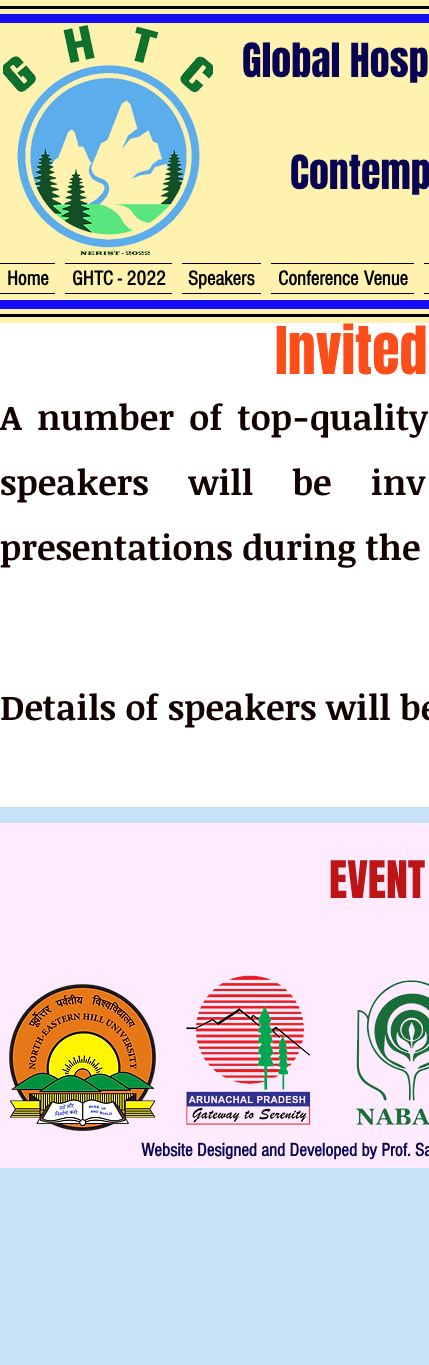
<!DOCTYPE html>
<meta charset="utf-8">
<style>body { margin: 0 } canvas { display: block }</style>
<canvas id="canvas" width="429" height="1365"></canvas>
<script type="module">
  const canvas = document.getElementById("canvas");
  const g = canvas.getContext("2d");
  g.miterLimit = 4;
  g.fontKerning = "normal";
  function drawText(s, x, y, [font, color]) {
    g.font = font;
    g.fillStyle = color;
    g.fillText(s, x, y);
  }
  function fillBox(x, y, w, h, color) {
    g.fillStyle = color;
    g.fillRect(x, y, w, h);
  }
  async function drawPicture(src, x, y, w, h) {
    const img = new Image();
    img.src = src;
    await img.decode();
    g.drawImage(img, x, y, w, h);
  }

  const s1 = ["40px Anton", "#080451"];
  const s2 = ["bold 21px 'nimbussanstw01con'", "#000000"];
  const s3 = ["56px Anton", "#FC4E1A"];
  const s4 = ["bold 35px Noticia Text", "#120202"];
  const s5 = ["44px Anton", "#BD1515"];
  const s6 = ["bold 19px 'nimbussanstw01con'", "#080451"];

  fillBox(0, 0, 429, 1365, "#C7E2F8");
  fillBox(0, 0, 429, 323, "#FEF2AE");
  fillBox(0, 6, 429, 3, "#000000");
  fillBox(0, 314, 429, 3, "#000000");
  fillBox(0, 14, 429, 9, "#170DF2");
  fillBox(0, 300, 429, 9, "#170DF2");
  await drawPicture("pic1.png", 3, 25, 210, 231);
  drawText("Global Hosp", 242, 77, s1);
  drawText("Contemp", 290, 189, s1);
  fillBox(0, 263, 55, 1, "#000000");
  fillBox(0, 293, 55, 1, "#000000");
  drawText("Home", 7, 285, s2);
  fillBox(65, 263, 107, 1, "#000000");
  fillBox(65, 293, 107, 1, "#000000");
  drawText("GHTC - 2022", 72, 285, s2);
  fillBox(182, 263, 79, 1, "#000000");
  fillBox(182, 293, 79, 1, "#000000");
  drawText("Speakers", 188, 285, s2);
  fillBox(271, 263, 143, 1, "#000000");
  fillBox(271, 293, 143, 1, "#000000");
  drawText("Conference Venue", 278, 285, s2);
  fillBox(424, 263, 5, 1, "#000000");
  fillBox(424, 293, 5, 1, "#000000");
  fillBox(0, 323, 429, 484, "#FFFFFF");
  drawText("Invited", 275, 374, s3);
  g.wordSpacing = "6px";
  drawText("A number of top-quality", 0, 430, s4);
  g.wordSpacing = "30px";
  drawText("speakers will be inv", 0, 495, s4);
  g.wordSpacing = "0px";
  drawText("presentations during the", 0, 560, s4);
  drawText("Details of speakers will be", 0, 720, s4);
  fillBox(0, 823, 429, 345, "#FFEBFF");
  drawText("EVENT", 329, 898, s5);
  await drawPicture("pic2.png", 9, 984, 147, 147);
  await drawPicture("pic3.png", 186, 975, 125, 150);
  await drawPicture("pic4.png", 356, 980, 73, 145);
  drawText("Website Designed and Developed by Prof. Sa", 141, 1156, s6);
</script>
